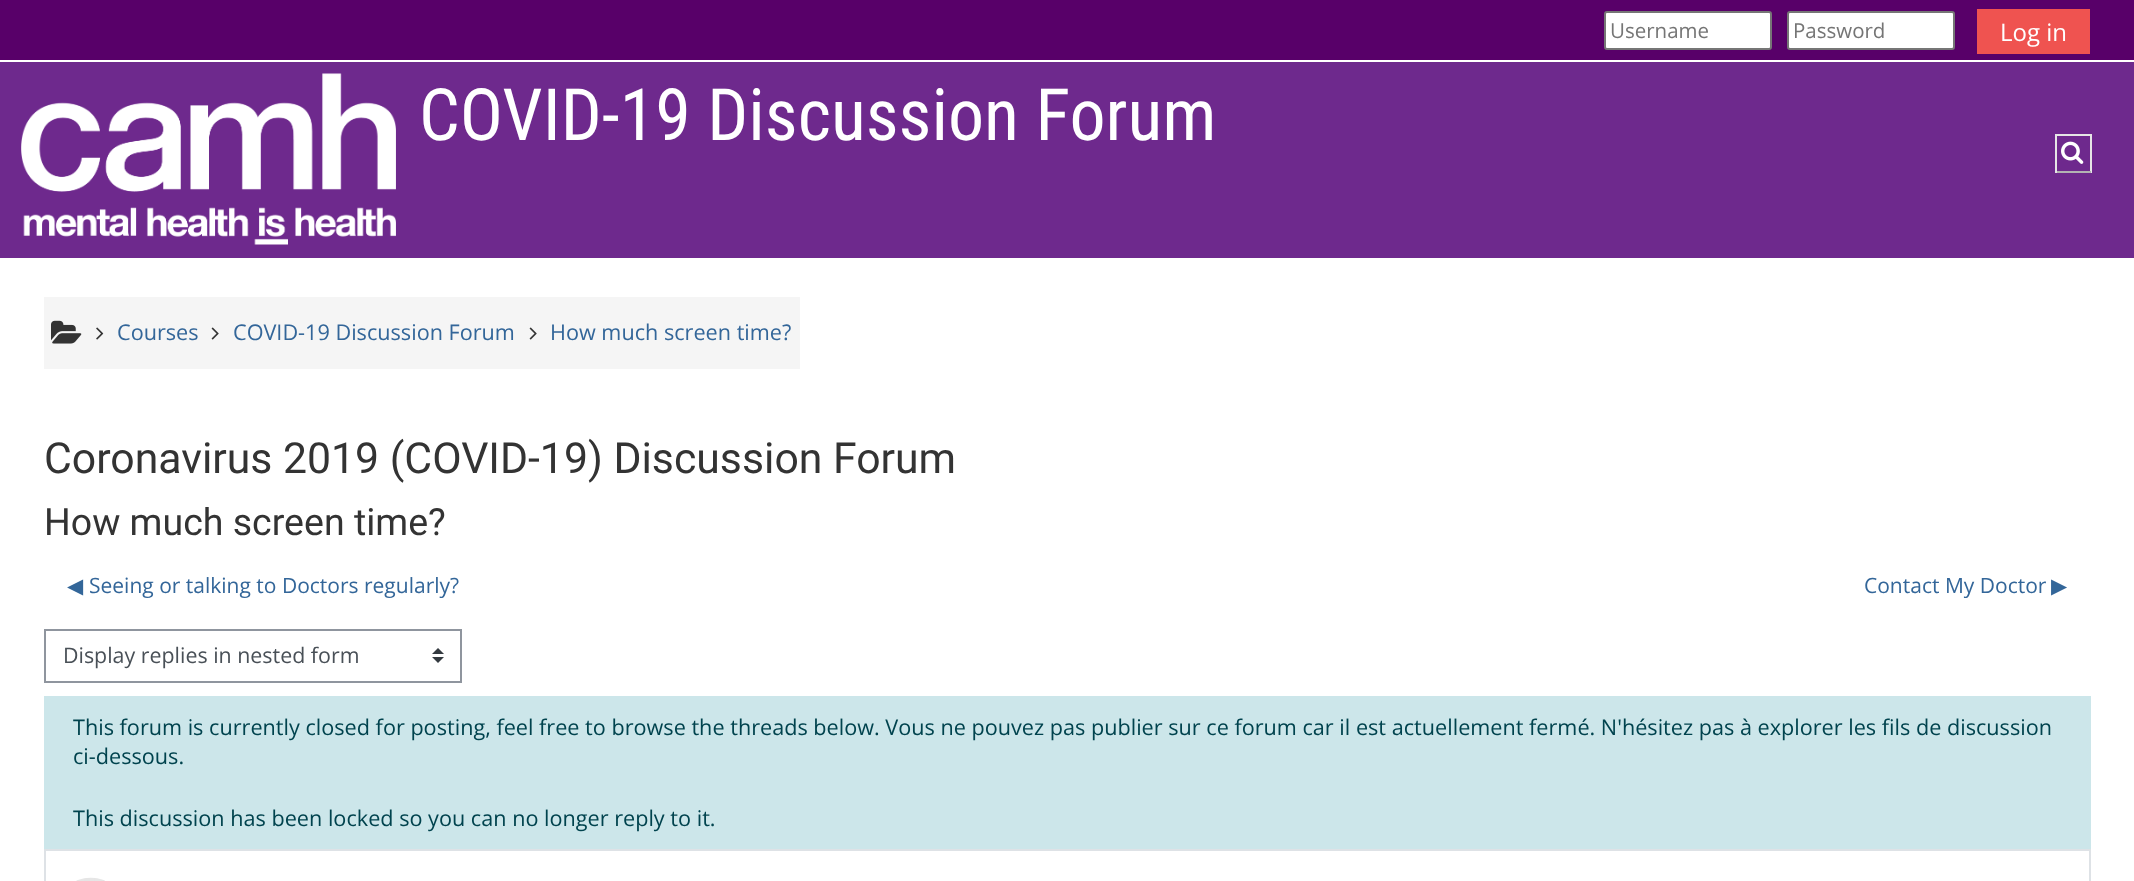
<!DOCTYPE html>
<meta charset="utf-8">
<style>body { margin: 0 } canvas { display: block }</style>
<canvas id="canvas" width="2134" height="881"></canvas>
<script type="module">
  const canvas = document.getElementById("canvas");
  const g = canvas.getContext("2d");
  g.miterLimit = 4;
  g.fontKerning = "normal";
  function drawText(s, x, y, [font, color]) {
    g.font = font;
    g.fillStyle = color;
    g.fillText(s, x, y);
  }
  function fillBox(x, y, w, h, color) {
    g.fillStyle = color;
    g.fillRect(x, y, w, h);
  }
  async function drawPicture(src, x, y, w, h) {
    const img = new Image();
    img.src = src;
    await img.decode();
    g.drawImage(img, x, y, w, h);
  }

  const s1 = ["20.5px Open Sans", "#757575"];
  const s2 = ["24px Open Sans", "#FFFFFF"];
  const s3 = ["72px Roboto Condensed", "#FFFFFF"];
  const s4 = ["21.65px Open Sans", "#336699"];
  const s5 = ["42.75px Roboto", "#333333"];
  const s6 = ["37.5px Roboto", "#333333"];
  const s7 = ["21px DejaVu Sans", "#336699"];
  const s8 = ["21px Open Sans", "#336699"];
  const s9 = ["21.4px Open Sans", "#495057"];
  const s10 = ["21.65px Open Sans", "#00434E"];

  fillBox(0, 0, 2134, 881, "#FFFFFF");
  fillBox(0, 62, 2134, 196, "#6E298D");
  fillBox(0, 0, 2134, 60, "#580069");
  g.fillStyle = "#FFFFFF";
  g.beginPath();
  g.roundRect(1605, 12, 166, 37, 2);
  g.fill();
  g.strokeStyle = "#767676";
  g.lineWidth = 2;
  g.stroke();
  drawText("Username", 1610, 38, s1);
  g.fillStyle = "#FFFFFF";
  g.beginPath();
  g.roundRect(1788, 12, 166, 37, 2);
  g.fill();
  g.stroke();
  drawText("Password", 1793, 38, s1);
  fillBox(1977, 9, 113, 45, "#EF5350");
  drawText("Log in", 2000, 41, s2);
  await drawPicture("pic1.png", 21, 73, 375, 172);
  drawText("COVID-19 Discussion Forum", 419, 140, s3);
  fillBox(2055, 134, 36, 2, "#E6E6E6");
  fillBox(2090, 134, 2, 39, "#E6E6E6");
  fillBox(2055, 171, 36, 2, "#B3B3B3");
  fillBox(2055, 134, 2, 39, "#E6E6E6");
  await drawPicture("pic2.png", 2061, 141, 23, 23);
  fillBox(44, 297, 756, 72, "#F5F5F5");
  await drawPicture("pic3.png", 51, 320, 31, 24);
  await drawPicture("pic4.png", 96, 327, 8, 13);
  drawText("Courses", 117, 340, s4);
  await drawPicture("pic5.png", 211, 327, 8, 13);
  drawText("COVID-19 Discussion Forum", 233, 340, s4);
  await drawPicture("pic5.png", 529, 327, 8, 13);
  drawText("How much screen time?", 550, 340, s4);
  drawText("Coronavirus 2019 (COVID-19) Discussion Forum", 44, 473, s5);
  drawText("How much screen time?", 44, 535, s6);
  drawText("◀︎", 67, 593, s7);
  drawText("Seeing or talking to Doctors regularly?", 89, 593, s8);
  drawText("Contact My Doctor", 1864, 593, s8);
  drawText("▶︎", 2051, 593, s7);
  await drawPicture("pic6.png", 432, 648, 12, 15);
  g.strokeStyle = "#8F959E";
  g.strokeRect(45, 630, 416, 52);
  drawText("Display replies in nested form", 63, 663, s9);
  fillBox(44, 696, 2047, 153, "#CCE6EA");
  drawText("This forum is currently closed for posting, feel free to browse the threads below. Vous ne pouvez pas publier sur ce forum car il est actuellement fermé. N'hésitez pas à explorer les fils de discussion", 73, 735, s10);
  drawText("ci-dessous.", 73, 764, s10);
  drawText("This discussion has been locked so you can no longer reply to it.", 73, 826, s10);
  g.strokeStyle = "#DEE2E6";
  g.strokeRect(45, 850, 2045, 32);
  await drawPicture("pic7.png", 76, 877, 29, 4);
</script>
